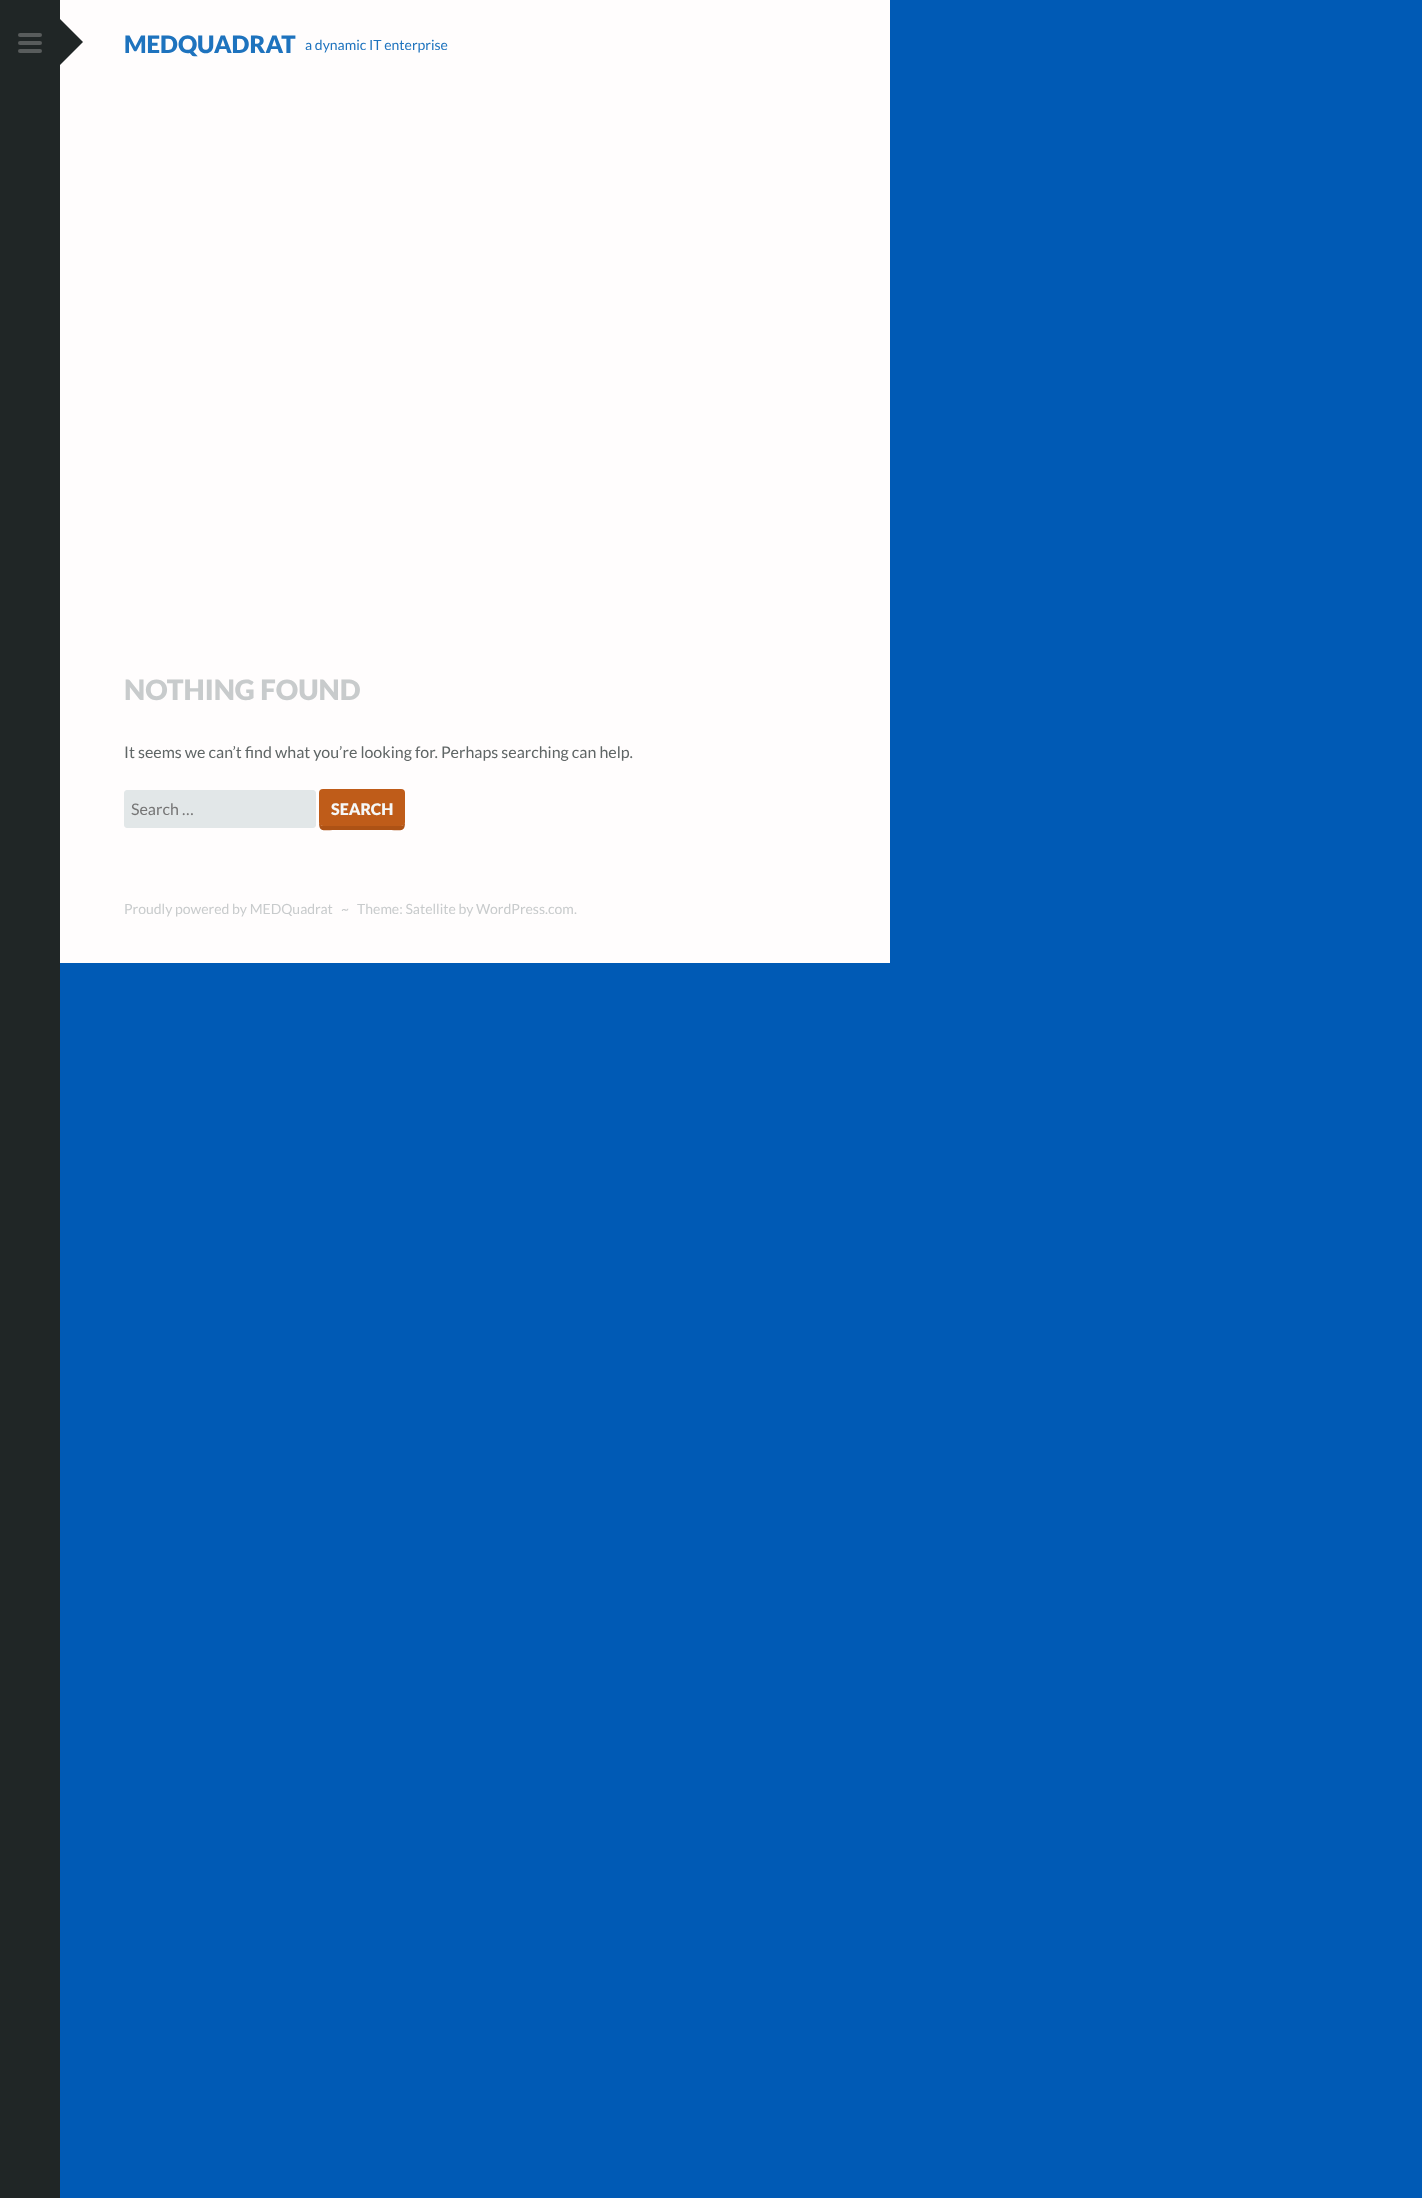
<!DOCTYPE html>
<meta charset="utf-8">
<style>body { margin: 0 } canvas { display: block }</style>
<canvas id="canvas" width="1422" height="2198"></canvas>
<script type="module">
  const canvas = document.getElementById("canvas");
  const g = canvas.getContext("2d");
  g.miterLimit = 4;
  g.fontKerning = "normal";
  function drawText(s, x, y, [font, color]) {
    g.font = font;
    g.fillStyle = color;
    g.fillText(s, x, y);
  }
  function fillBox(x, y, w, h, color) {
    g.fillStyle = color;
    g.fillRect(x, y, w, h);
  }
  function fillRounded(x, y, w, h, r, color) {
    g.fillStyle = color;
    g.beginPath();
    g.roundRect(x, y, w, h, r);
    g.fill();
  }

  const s1 = ["900 24px Lato", "#1E73BE"];
  const s2 = ["14px Lato", "#1E73BE"];
  const s3 = ["900 28px Lato", "#C8CBCC"];
  const s4 = ["16px Lato", "#606666"];
  const s5 = ["16px Lato", "#757575"];
  const s6 = ["900 16px Lato", "#F5F7F7"];
  const s7 = ["14px Lato", "#C8CBCC"];

  fillBox(0, 0, 1422, 2198, "#005AB5");
  fillBox(0, 0, 60, 2198, "#202626");
  fillBox(60, 0, 830, 963, "#FFFDFD");
  g.fillStyle = "#202626";
  g.beginPath();
  g.moveTo(55, 14);
  g.lineTo(83, 42);
  g.lineTo(55, 70);
  g.lineTo(27, 42);
  g.closePath();
  g.fill();
  fillRounded(18, 41, 24, 4, 2, "#585C5C");
  fillRounded(18, 33, 24, 4, 2, "#585C5C");
  fillRounded(18, 49, 24, 4, 2, "#585C5C");
  drawText("MEDQUADRAT", 124, 53, s1);
  drawText("a dynamic IT enterprise", 305, 50, s2);
  drawText("NOTHING FOUND", 124, 700, s3);
  drawText("It seems we can’t find what you’re looking for. Perhaps searching can help.", 124, 758, s4);
  g.fillStyle = "#E2E7E8";
  g.beginPath();
  g.roundRect(124.5, 790.5, 191, 37, 2.5);
  g.fill();
  g.strokeStyle = "#E2E7E8";
  g.stroke();
  drawText("Search …", 131, 815, s5);
  g.fillStyle = "#AD5215";
  g.beginPath();
  g.moveTo(319, 822);
  g.bezierCurveTo(319, 833, 323, 830, 336, 830);
  g.lineTo(388, 830);
  g.bezierCurveTo(401, 830, 405, 833, 405, 822);
  g.bezierCurveTo(405, 824, 403, 826, 401, 826);
  g.lineTo(323, 826);
  g.bezierCurveTo(321, 826, 319, 824, 319, 822);
  g.closePath();
  g.fill();
  fillRounded(319, 789, 86, 37, 4, "#BF5C19");
  drawText("SEARCH", 331, 815, s6);
  drawText("Proudly powered by MEDQuadrat", 124, 914, s7);
  drawText("~", 341, 914, s7);
  drawText("Theme: Satellite by WordPress.com", 357, 914, s7);
  drawText(".", 574, 914, s7);
</script>
